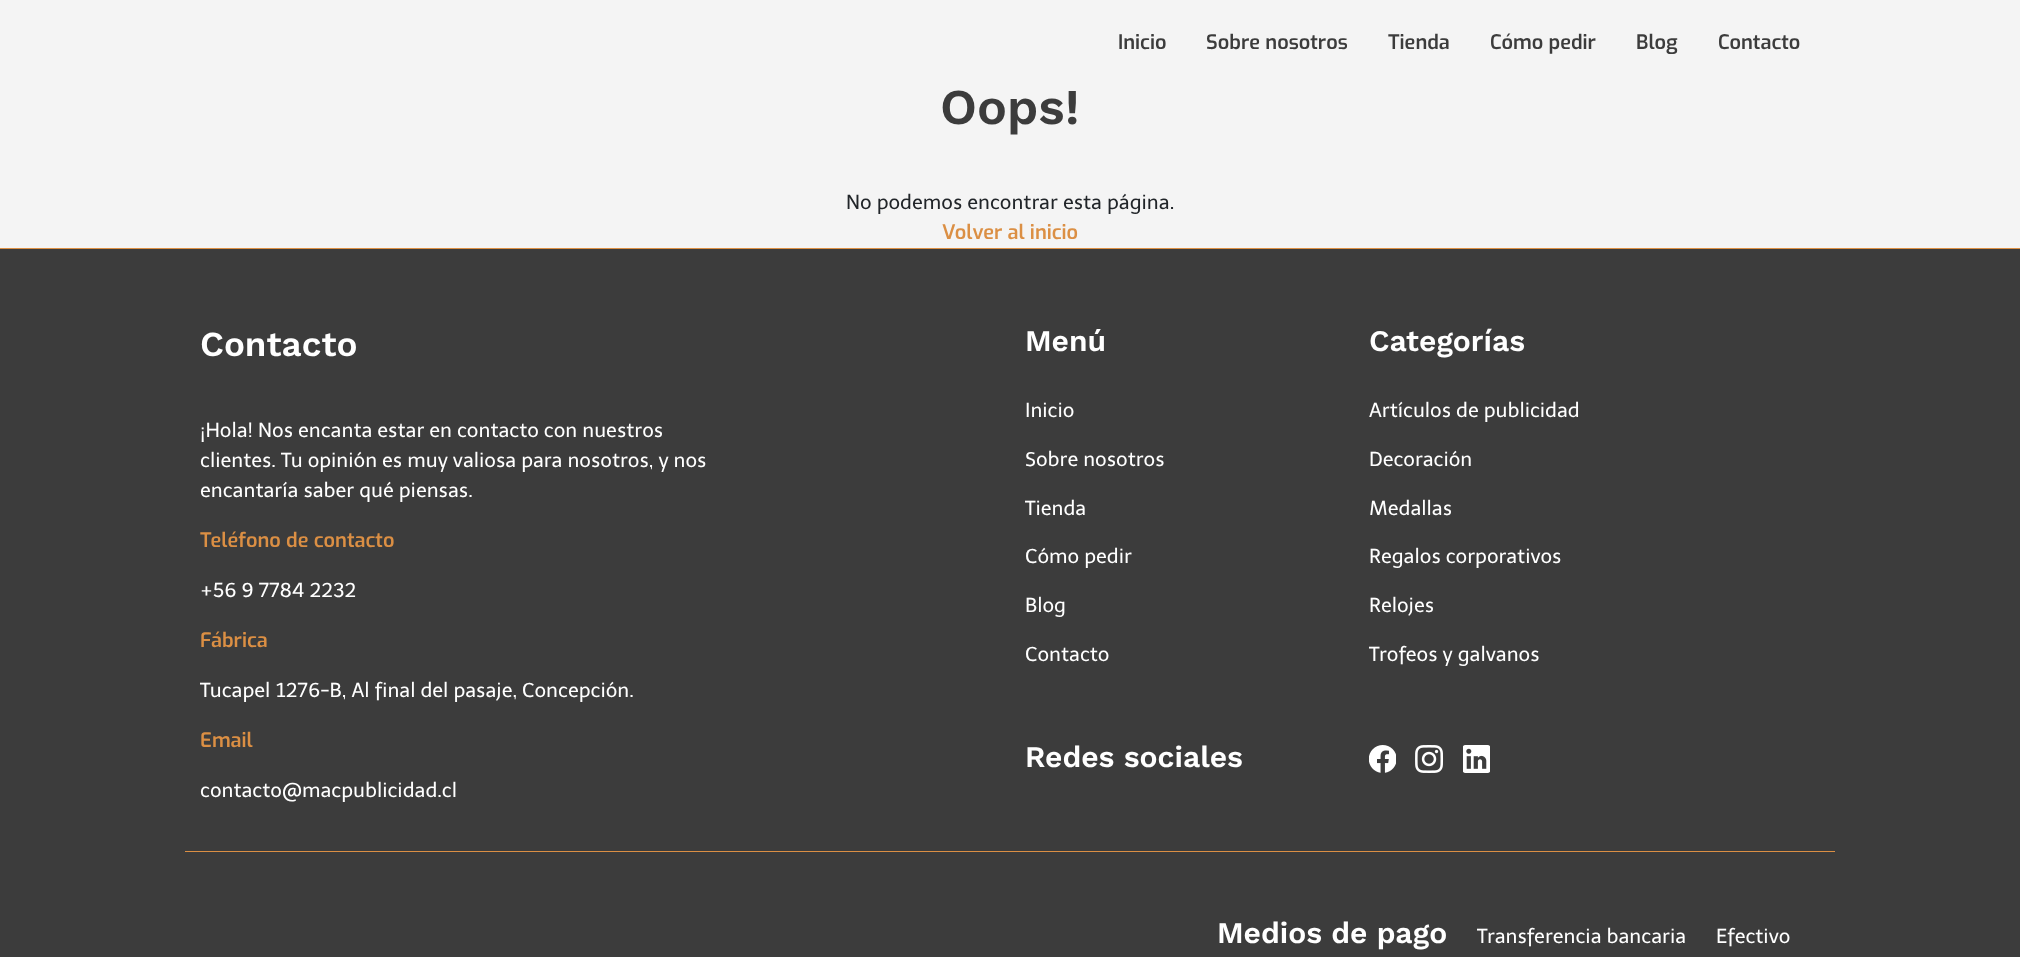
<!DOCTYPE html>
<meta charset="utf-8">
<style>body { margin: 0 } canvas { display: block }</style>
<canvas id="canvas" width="2020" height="957"></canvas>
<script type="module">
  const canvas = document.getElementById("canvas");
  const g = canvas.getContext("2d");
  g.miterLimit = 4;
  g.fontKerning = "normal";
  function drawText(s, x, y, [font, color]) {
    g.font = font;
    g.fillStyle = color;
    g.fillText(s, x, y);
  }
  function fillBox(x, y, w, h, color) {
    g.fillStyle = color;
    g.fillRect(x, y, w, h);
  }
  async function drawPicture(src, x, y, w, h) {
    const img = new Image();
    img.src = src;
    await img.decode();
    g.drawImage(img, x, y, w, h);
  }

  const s1 = ["600 20px Exo", "#3C3C3C"];
  const s2 = ["600 50px Work Sans", "#3C3C3C"];
  const s3 = ["20px Telex", "#212529"];
  const s4 = ["600 20px Exo", "#DB8F44"];
  const s5 = ["600 35px Work Sans", "#FFFFFF"];
  const s6 = ["20px Telex", "#FFFFFF"];
  const s7 = ["600 30px Work Sans", "#FFFFFF"];

  fillBox(0, 0, 2020, 957, "#F4F4F4");
  drawText("Inicio", 1118, 49, s1);
  drawText("Sobre nosotros", 1206, 49, s1);
  drawText("Tienda", 1388, 49, s1);
  drawText("Cómo pedir", 1490, 49, s1);
  drawText("Blog", 1636, 49, s1);
  drawText("Contacto", 1718, 49, s1);
  drawText("Oops!", 940, 124, s2);
  drawText("No podemos encontrar esta página.", 846, 209, s3);
  drawText("Volver al inicio", 942, 239, s4);
  fillBox(0, 249, 2020, 708, "#3C3C3C");
  fillBox(0, 248, 2020, 1, "#DB8F44");
  drawText("Contacto", 200, 356, s5);
  drawText("¡Hola! Nos encanta estar en contacto con nuestros", 200, 437, s6);
  drawText("clientes. Tu opinión es muy valiosa para nosotros, y nos", 200, 467, s6);
  drawText("encantaría saber qué piensas.", 200, 497, s6);
  drawText("Teléfono de contacto", 200, 547, s4);
  drawText("+56 9 7784 2232", 200, 597, s6);
  drawText("Fábrica", 200, 647, s4);
  drawText("Tucapel 1276-B, Al final del pasaje, Concepción.", 200, 697, s6);
  drawText("Email", 200, 747, s4);
  drawText("contacto@macpublicidad.cl", 200, 797, s6);
  drawText("Menú", 1025, 351, s7);
  drawText("Inicio", 1025, 417, s6);
  drawText("Sobre nosotros", 1025, 466, s6);
  drawText("Tienda", 1025, 515, s6);
  drawText("Cómo pedir", 1025, 563, s6);
  drawText("Blog", 1025, 612, s6);
  drawText("Contacto", 1025, 661, s6);
  drawText("Categorías", 1369, 351, s7);
  drawText("Artículos de publicidad", 1369, 417, s6);
  drawText("Decoración", 1369, 466, s6);
  drawText("Medallas", 1369, 515, s6);
  drawText("Regalos corporativos", 1369, 563, s6);
  drawText("Relojes", 1369, 612, s6);
  drawText("Trofeos y galvanos", 1369, 661, s6);
  drawText("Redes sociales", 1025, 767, s7);
  await drawPicture("pic1.png", 1369, 745, 27, 28);
  await drawPicture("pic2.png", 1415, 745, 29, 28);
  await drawPicture("pic3.png", 1463, 745, 27, 28);
  fillBox(185, 851, 1650, 1, "#DB8F44");
  drawText("Medios de pago", 1217, 943, s7);
  drawText("Transferencia bancaria", 1477, 943, s6);
  drawText("Efectivo", 1716, 943, s6);
</script>
